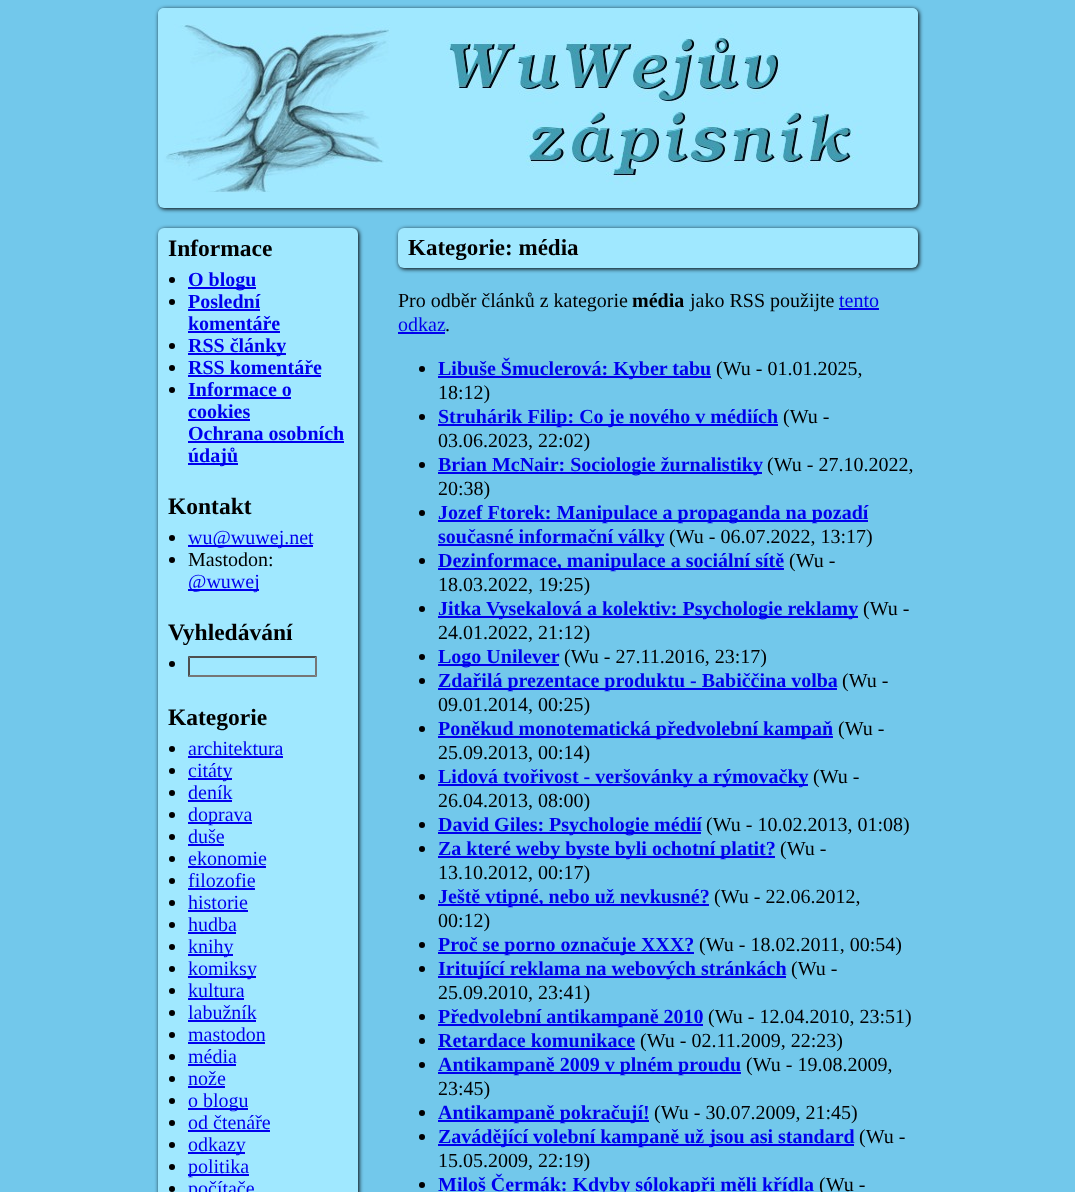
<!DOCTYPE html>
<meta charset="utf-8">
<style>body { margin: 0 } canvas { display: block }</style>
<canvas id="canvas" width="1075" height="1192"></canvas>
<script type="module">
  const canvas = document.getElementById("canvas");
  const g = canvas.getContext("2d");
  g.miterLimit = 4;
  g.fontKerning = "normal";
  function drawText(s, x, y, [font, color]) {
    g.font = font;
    g.fillStyle = color;
    g.fillText(s, x, y);
  }
  function fillBox(x, y, w, h, color) {
    g.fillStyle = color;
    g.fillRect(x, y, w, h);
  }
  function fillRounded(x, y, w, h, r, color) {
    g.fillStyle = color;
    g.beginPath();
    g.roundRect(x, y, w, h, r);
    g.fill();
  }
  async function drawPicture(src, x, y, w, h) {
    const img = new Image();
    img.src = src;
    await img.decode();
    g.drawImage(img, x, y, w, h);
  }

  const s1 = ["bold 23.5px Tinos", "#000000"];
  const s2 = ["bold 20px Tinos", "#0000EE"];
  const s3 = ["20px Tinos", "#0000EE"];
  const s4 = ["20px Tinos", "#000000"];
  const s5 = ["bold 23px Tinos", "#000000"];
  const s6 = ["bold 20px Tinos", "#000000"];

  fillBox(0, 0, 1075, 1192, "#72C8EB");
  g.fillStyle = "#000000";
  g.filter = "blur(2px)";
  g.beginPath();
  g.roundRect(159, 9, 760, 200, 6);
  g.fill();
  g.filter = "none";
  fillRounded(158, 8, 760, 200, 6, "#A0E8FF");
  await drawPicture("pic1.png", 158, 8, 760, 185);
  g.fillStyle = "#000000";
  g.filter = "blur(2px)";
  g.beginPath();
  g.roundRect(159, 229, 200, 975, 6);
  g.fill();
  g.filter = "none";
  fillRounded(158, 228, 200, 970, 6, "#A0E8FF");
  drawText("Informace", 168, 256, s1);
  g.beginPath();
  g.arc(172, 280, 3, 0, Math.PI * 2);
  g.fill();
  fillBox(188, 287, 68, 2, "#0000EE");
  drawText("O blogu", 188, 286, s2);
  g.fillStyle = "#000000";
  g.beginPath();
  g.arc(172, 302, 3, 0, Math.PI * 2);
  g.fill();
  drawText("Poslední", 188, 308, s2);
  fillBox(188, 309, 72, 2, "#0000EE");
  drawText("komentáře", 188, 330, s2);
  fillBox(188, 331, 92, 2, "#0000EE");
  g.fillStyle = "#000000";
  g.beginPath();
  g.arc(172, 346, 3, 0, Math.PI * 2);
  g.fill();
  fillBox(188, 353, 98, 2, "#0000EE");
  drawText("RSS články", 188, 352, s2);
  g.fillStyle = "#000000";
  g.beginPath();
  g.arc(172, 368, 3, 0, Math.PI * 2);
  g.fill();
  drawText("RSS komentáře", 188, 374, s2);
  fillBox(188, 375, 133, 2, "#0000EE");
  g.fillStyle = "#000000";
  g.beginPath();
  g.arc(172, 390, 3, 0, Math.PI * 2);
  g.fill();
  drawText("Informace o", 188, 396, s2);
  fillBox(188, 397, 103, 2, "#0000EE");
  drawText("cookies", 188, 418, s2);
  fillBox(188, 419, 62, 2, "#0000EE");
  drawText("Ochrana osobních", 188, 440, s2);
  fillBox(188, 441, 156, 2, "#0000EE");
  fillBox(188, 463, 50, 2, "#0000EE");
  drawText("údajů", 188, 462, s2);
  drawText("Kontakt", 168, 514, s1);
  g.beginPath();
  g.arc(172, 538, 3, 0, Math.PI * 2);
  g.fill();
  fillBox(188, 545, 125, 2, "#0000EE");
  drawText("wu@wuwej.net", 188, 544, s3);
  g.fillStyle = "#000000";
  g.beginPath();
  g.arc(172, 560, 3, 0, Math.PI * 2);
  g.fill();
  drawText("Mastodon:", 188, 566, s4);
  fillBox(188, 589, 71, 2, "#0000EE");
  drawText("@wuwej", 188, 588, s3);
  drawText("Vyhledávání", 168, 640, s1);
  g.beginPath();
  g.arc(172, 664, 3, 0, Math.PI * 2);
  g.fill();
  g.fillStyle = "#4F4F4F";
  g.beginPath();
  g.moveTo(188, 656);
  g.lineTo(317, 656);
  g.lineTo(315, 658);
  g.lineTo(190, 658);
  g.closePath();
  g.fill();
  g.fillStyle = "#767676";
  g.beginPath();
  g.moveTo(317, 656);
  g.lineTo(317, 677);
  g.lineTo(315, 675);
  g.lineTo(315, 658);
  g.closePath();
  g.fill();
  g.beginPath();
  g.moveTo(317, 677);
  g.lineTo(188, 677);
  g.lineTo(190, 675);
  g.lineTo(315, 675);
  g.closePath();
  g.fill();
  g.fillStyle = "#4F4F4F";
  g.beginPath();
  g.moveTo(188, 677);
  g.lineTo(188, 656);
  g.lineTo(190, 658);
  g.lineTo(190, 675);
  g.closePath();
  g.fill();
  drawText("Kategorie", 168, 725, s1);
  g.beginPath();
  g.arc(172, 749, 3, 0, Math.PI * 2);
  g.fill();
  drawText("architektura", 188, 755, s3);
  fillBox(188, 756, 95, 2, "#0000EE");
  g.fillStyle = "#000000";
  g.beginPath();
  g.arc(172, 771, 3, 0, Math.PI * 2);
  g.fill();
  fillBox(188, 778, 44, 2, "#0000EE");
  drawText("citáty", 188, 777, s3);
  g.fillStyle = "#000000";
  g.beginPath();
  g.arc(172, 793, 3, 0, Math.PI * 2);
  g.fill();
  drawText("deník", 188, 799, s3);
  fillBox(188, 800, 44, 2, "#0000EE");
  g.fillStyle = "#000000";
  g.beginPath();
  g.arc(172, 815, 3, 0, Math.PI * 2);
  g.fill();
  fillBox(188, 822, 64, 2, "#0000EE");
  drawText("doprava", 188, 821, s3);
  g.fillStyle = "#000000";
  g.beginPath();
  g.arc(172, 837, 3, 0, Math.PI * 2);
  g.fill();
  drawText("duše", 188, 843, s3);
  fillBox(188, 844, 36, 2, "#0000EE");
  g.fillStyle = "#000000";
  g.beginPath();
  g.arc(172, 859, 3, 0, Math.PI * 2);
  g.fill();
  drawText("ekonomie", 188, 865, s3);
  fillBox(188, 866, 78, 2, "#0000EE");
  g.fillStyle = "#000000";
  g.beginPath();
  g.arc(172, 881, 3, 0, Math.PI * 2);
  g.fill();
  drawText("filozofie", 188, 887, s3);
  fillBox(188, 888, 67, 2, "#0000EE");
  g.fillStyle = "#000000";
  g.beginPath();
  g.arc(172, 903, 3, 0, Math.PI * 2);
  g.fill();
  drawText("historie", 188, 909, s3);
  fillBox(188, 910, 60, 2, "#0000EE");
  g.fillStyle = "#000000";
  g.beginPath();
  g.arc(172, 925, 3, 0, Math.PI * 2);
  g.fill();
  drawText("hudba", 188, 931, s3);
  fillBox(188, 932, 48, 2, "#0000EE");
  g.fillStyle = "#000000";
  g.beginPath();
  g.arc(172, 947, 3, 0, Math.PI * 2);
  g.fill();
  fillBox(188, 954, 45, 2, "#0000EE");
  drawText("knihy", 188, 953, s3);
  g.fillStyle = "#000000";
  g.beginPath();
  g.arc(172, 969, 3, 0, Math.PI * 2);
  g.fill();
  fillBox(188, 976, 68, 2, "#0000EE");
  drawText("komiksy", 188, 975, s3);
  g.fillStyle = "#000000";
  g.beginPath();
  g.arc(172, 991, 3, 0, Math.PI * 2);
  g.fill();
  drawText("kultura", 188, 997, s3);
  fillBox(188, 998, 56, 2, "#0000EE");
  g.fillStyle = "#000000";
  g.beginPath();
  g.arc(172, 1013, 3, 0, Math.PI * 2);
  g.fill();
  drawText("labužník", 188, 1019, s3);
  fillBox(188, 1020, 68, 2, "#0000EE");
  g.fillStyle = "#000000";
  g.beginPath();
  g.arc(172, 1035, 3, 0, Math.PI * 2);
  g.fill();
  drawText("mastodon", 188, 1041, s3);
  fillBox(188, 1042, 77, 2, "#0000EE");
  g.fillStyle = "#000000";
  g.beginPath();
  g.arc(172, 1057, 3, 0, Math.PI * 2);
  g.fill();
  drawText("média", 188, 1063, s3);
  fillBox(188, 1064, 48, 2, "#0000EE");
  g.fillStyle = "#000000";
  g.beginPath();
  g.arc(172, 1079, 3, 0, Math.PI * 2);
  g.fill();
  drawText("nože", 188, 1085, s3);
  fillBox(188, 1086, 37, 2, "#0000EE");
  g.fillStyle = "#000000";
  g.beginPath();
  g.arc(172, 1101, 3, 0, Math.PI * 2);
  g.fill();
  fillBox(188, 1108, 60, 2, "#0000EE");
  drawText("o blogu", 188, 1107, s3);
  g.fillStyle = "#000000";
  g.beginPath();
  g.arc(172, 1123, 3, 0, Math.PI * 2);
  g.fill();
  drawText("od čtenáře", 188, 1129, s3);
  fillBox(188, 1130, 82, 2, "#0000EE");
  g.fillStyle = "#000000";
  g.beginPath();
  g.arc(172, 1145, 3, 0, Math.PI * 2);
  g.fill();
  fillBox(188, 1152, 57, 2, "#0000EE");
  drawText("odkazy", 188, 1151, s3);
  g.fillStyle = "#000000";
  g.beginPath();
  g.arc(172, 1167, 3, 0, Math.PI * 2);
  g.fill();
  fillBox(188, 1174, 61, 2, "#0000EE");
  drawText("politika", 188, 1173, s3);
  g.fillStyle = "#000000";
  g.beginPath();
  g.arc(172, 1189, 3, 0, Math.PI * 2);
  g.fill();
  drawText("počítače", 188, 1195, s3);
  g.fillStyle = "#000000";
  g.filter = "blur(2px)";
  g.beginPath();
  g.roundRect(399, 229, 520, 40, 6);
  g.fill();
  g.filter = "none";
  fillRounded(398, 228, 520, 40, 6, "#A0E8FF");
  drawText("Kategorie: média", 408, 255, s5);
  drawText("Pro odběr článků z kategorie", 398, 307, s4);
  drawText("média", 632, 307, s6);
  drawText("jako RSS použijte", 690, 307, s4);
  drawText("tento", 839, 307, s3);
  fillBox(839, 308, 40, 2, "#0000EE");
  drawText("odkaz", 398, 331, s3);
  fillBox(398, 332, 47, 2, "#0000EE");
  drawText(".", 445, 331, s4);
  g.beginPath();
  g.arc(422, 369, 3, 0, Math.PI * 2);
  g.fill();
  fillBox(438, 376, 273, 2, "#0000EE");
  drawText("Libuše Šmuclerová: Kyber tabu", 438, 375, s2);
  drawText("(Wu - 01.01.2025,", 716, 375, s4);
  drawText("18:12)", 438, 399, s4);
  g.beginPath();
  g.arc(422, 417, 3, 0, Math.PI * 2);
  g.fill();
  fillBox(438, 424, 340, 2, "#0000EE");
  drawText("Struhárik Filip: Co je nového v médiích", 438, 423, s2);
  drawText("(Wu -", 783, 423, s4);
  drawText("03.06.2023, 22:02)", 438, 447, s4);
  g.beginPath();
  g.arc(422, 465, 3, 0, Math.PI * 2);
  g.fill();
  fillBox(438, 472, 324, 2, "#0000EE");
  drawText("Brian McNair: Sociologie žurnalistiky", 438, 471, s2);
  drawText("(Wu - 27.10.2022,", 767, 471, s4);
  drawText("20:38)", 438, 495, s4);
  g.beginPath();
  g.arc(422, 513, 3, 0, Math.PI * 2);
  g.fill();
  fillBox(438, 520, 430, 2, "#0000EE");
  drawText("Jozef Ftorek: Manipulace a propaganda na pozadí", 438, 519, s2);
  fillBox(438, 544, 226, 2, "#0000EE");
  drawText("současné informační války", 438, 543, s2);
  drawText("(Wu - 06.07.2022, 13:17)", 669, 543, s4);
  g.beginPath();
  g.arc(422, 561, 3, 0, Math.PI * 2);
  g.fill();
  fillBox(438, 568, 346, 2, "#0000EE");
  drawText("Dezinformace, manipulace a sociální sítě", 438, 567, s2);
  drawText("(Wu -", 789, 567, s4);
  drawText("18.03.2022, 19:25)", 438, 591, s4);
  g.beginPath();
  g.arc(422, 609, 3, 0, Math.PI * 2);
  g.fill();
  fillBox(438, 616, 420, 2, "#0000EE");
  drawText("Jitka Vysekalová a kolektiv: Psychologie reklamy", 438, 615, s2);
  drawText("(Wu -", 863, 615, s4);
  drawText("24.01.2022, 21:12)", 438, 639, s4);
  g.beginPath();
  g.arc(422, 657, 3, 0, Math.PI * 2);
  g.fill();
  fillBox(438, 664, 121, 2, "#0000EE");
  drawText("Logo Unilever", 438, 663, s2);
  drawText("(Wu - 27.11.2016, 23:17)", 564, 663, s4);
  g.beginPath();
  g.arc(422, 681, 3, 0, Math.PI * 2);
  g.fill();
  fillBox(438, 688, 399, 2, "#0000EE");
  drawText("Zdařilá prezentace produktu - Babiččina volba", 438, 687, s2);
  drawText("(Wu -", 842, 687, s4);
  drawText("09.01.2014, 00:25)", 438, 711, s4);
  g.beginPath();
  g.arc(422, 729, 3, 0, Math.PI * 2);
  g.fill();
  fillBox(438, 736, 395, 2, "#0000EE");
  drawText("Poněkud monotematická předvolební kampaň", 438, 735, s2);
  drawText("(Wu -", 838, 735, s4);
  drawText("25.09.2013, 00:14)", 438, 759, s4);
  g.beginPath();
  g.arc(422, 777, 3, 0, Math.PI * 2);
  g.fill();
  fillBox(438, 784, 370, 2, "#0000EE");
  drawText("Lidová tvořivost - veršovánky a rýmovačky", 438, 783, s2);
  drawText("(Wu -", 813, 783, s4);
  drawText("26.04.2013, 08:00)", 438, 807, s4);
  g.beginPath();
  g.arc(422, 825, 3, 0, Math.PI * 2);
  g.fill();
  fillBox(438, 832, 263, 2, "#0000EE");
  drawText("David Giles: Psychologie médií", 438, 831, s2);
  drawText("(Wu - 10.02.2013, 01:08)", 706, 831, s4);
  g.beginPath();
  g.arc(422, 849, 3, 0, Math.PI * 2);
  g.fill();
  fillBox(438, 856, 337, 2, "#0000EE");
  drawText("Za které weby byste byli ochotní platit?", 438, 855, s2);
  drawText("(Wu -", 780, 855, s4);
  drawText("13.10.2012, 00:17)", 438, 879, s4);
  g.beginPath();
  g.arc(422, 897, 3, 0, Math.PI * 2);
  g.fill();
  fillBox(438, 904, 271, 2, "#0000EE");
  drawText("Ještě vtipné, nebo už nevkusné?", 438, 903, s2);
  drawText("(Wu - 22.06.2012,", 714, 903, s4);
  drawText("00:12)", 438, 927, s4);
  g.beginPath();
  g.arc(422, 945, 3, 0, Math.PI * 2);
  g.fill();
  fillBox(438, 952, 256, 2, "#0000EE");
  drawText("Proč se porno označuje XXX?", 438, 951, s2);
  drawText("(Wu - 18.02.2011, 00:54)", 699, 951, s4);
  g.beginPath();
  g.arc(422, 969, 3, 0, Math.PI * 2);
  g.fill();
  fillBox(438, 976, 348, 2, "#0000EE");
  drawText("Iritující reklama na webových stránkách", 438, 975, s2);
  drawText("(Wu -", 791, 975, s4);
  drawText("25.09.2010, 23:41)", 438, 999, s4);
  g.beginPath();
  g.arc(422, 1017, 3, 0, Math.PI * 2);
  g.fill();
  fillBox(438, 1024, 265, 2, "#0000EE");
  drawText("Předvolební antikampaně 2010", 438, 1023, s2);
  drawText("(Wu - 12.04.2010, 23:51)", 708, 1023, s4);
  g.beginPath();
  g.arc(422, 1041, 3, 0, Math.PI * 2);
  g.fill();
  drawText("Retardace komunikace", 438, 1047, s2);
  fillBox(438, 1048, 197, 2, "#0000EE");
  drawText("(Wu - 02.11.2009, 22:23)", 640, 1047, s4);
  g.beginPath();
  g.arc(422, 1065, 3, 0, Math.PI * 2);
  g.fill();
  fillBox(438, 1072, 303, 2, "#0000EE");
  drawText("Antikampaně 2009 v plném proudu", 438, 1071, s2);
  drawText("(Wu - 19.08.2009,", 746, 1071, s4);
  drawText("23:45)", 438, 1095, s4);
  g.beginPath();
  g.arc(422, 1113, 3, 0, Math.PI * 2);
  g.fill();
  fillBox(438, 1120, 211, 2, "#0000EE");
  drawText("Antikampaně pokračují!", 438, 1119, s2);
  drawText("(Wu - 30.07.2009, 21:45)", 654, 1119, s4);
  g.beginPath();
  g.arc(422, 1137, 3, 0, Math.PI * 2);
  g.fill();
  fillBox(438, 1144, 416, 2, "#0000EE");
  drawText("Zavádějící volební kampaně už jsou asi standard", 438, 1143, s2);
  drawText("(Wu -", 859, 1143, s4);
  drawText("15.05.2009, 22:19)", 438, 1167, s4);
  g.beginPath();
  g.arc(422, 1185, 3, 0, Math.PI * 2);
  g.fill();
  drawText("Miloš Čermák: Kdyby sólokapři měli křídla", 438, 1191, s2);
  drawText("(Wu -", 819, 1191, s4);
</script>
